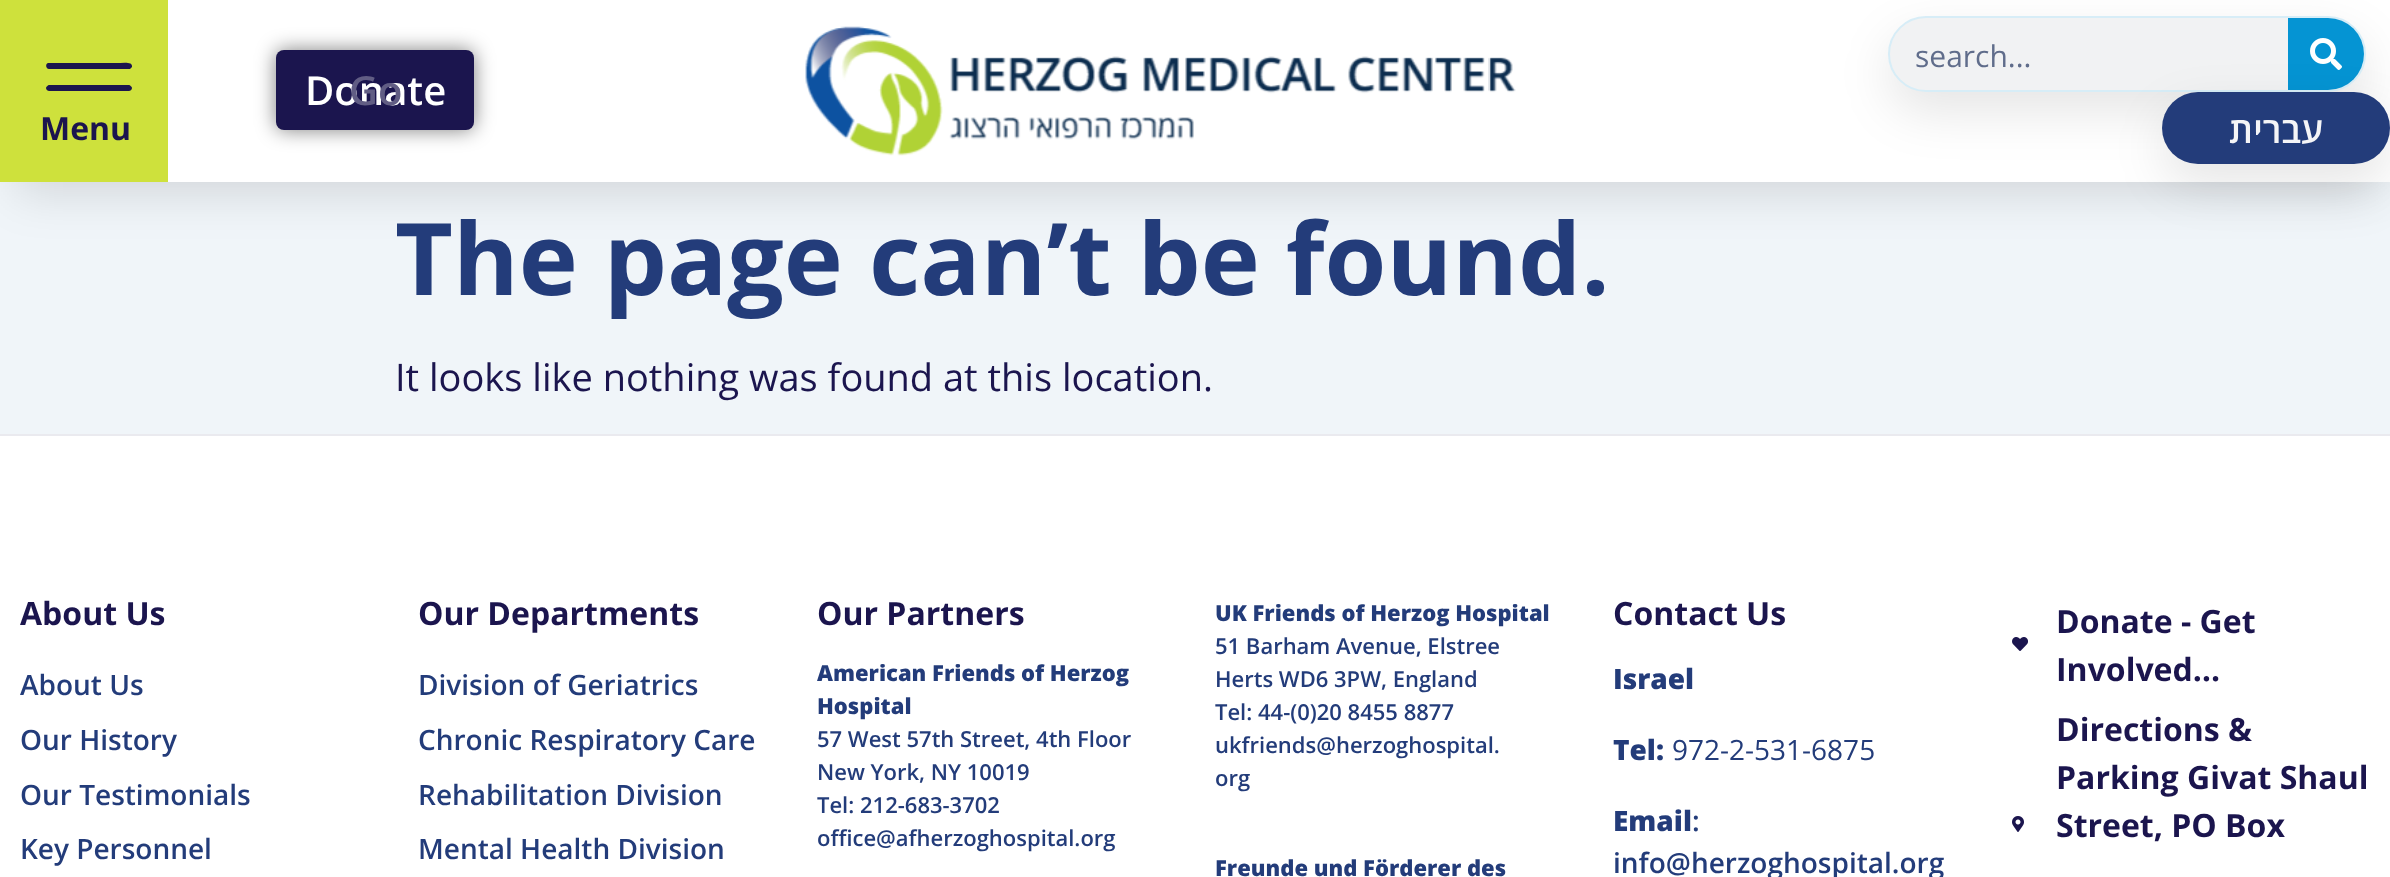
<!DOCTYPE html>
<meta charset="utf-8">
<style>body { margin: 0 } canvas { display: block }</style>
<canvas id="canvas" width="2390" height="877"></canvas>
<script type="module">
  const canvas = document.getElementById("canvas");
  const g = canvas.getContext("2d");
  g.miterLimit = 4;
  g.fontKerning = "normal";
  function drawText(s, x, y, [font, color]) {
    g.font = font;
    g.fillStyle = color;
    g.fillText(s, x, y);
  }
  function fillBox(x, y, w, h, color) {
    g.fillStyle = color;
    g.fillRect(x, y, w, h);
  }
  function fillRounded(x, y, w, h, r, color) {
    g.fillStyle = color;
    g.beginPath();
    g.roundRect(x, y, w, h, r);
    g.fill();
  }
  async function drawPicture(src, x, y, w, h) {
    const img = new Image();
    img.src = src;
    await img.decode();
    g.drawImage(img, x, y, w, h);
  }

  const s1 = ["600 40px Open Sans", "#FFFFFF"];
  const s2 = ["600 40px Open Sans", "#615D84"];
  const s3 = ["30px Open Sans", "#606D8B"];
  const s4 = ["600 36px Open Sans", "#F5F5F7"];
  const s5 = ["bold 32px Open Sans", "#1B154E"];
  const s6 = ["bold 100px Open Sans", "#233C7A"];
  const s7 = ["38px Open Sans", "#1B154E"];
  const s8 = ["600 28px Open Sans", "#233C7A"];
  const s9 = ["800 22px Open Sans", "#233C7A"];
  const s10 = ["600 22px Open Sans", "#233C7A"];
  const s11 = ["800 28px Open Sans", "#233C7A"];
  const s12 = ["28px Open Sans", "#233C7A"];

  fillBox(0, 0, 2390, 877, "#F0F5F9");
  g.fillStyle = "rgba(0, 0, 0, 0.13)";
  g.filter = "blur(24px)";
  g.beginPath();
  g.rect(16, 42, 2358, 150);
  g.fill();
  g.filter = "none";
  fillBox(168, 0, 2222, 182, "#FFFFFF");
  g.fillStyle = "rgba(0, 0, 0, 0.5)";
  g.filter = "blur(10px)";
  g.beginPath();
  g.roundRect(276, 50, 198, 80, 8);
  g.fill();
  g.filter = "none";
  fillRounded(276, 50, 198, 80, 8, "#1B154E");
  drawText("Donate", 305, 105, s1);
  drawText("Go", 349, 105, s2);
  await drawPicture("pic1.png", 805, 26, 711, 130);
  g.fillStyle = "rgba(0, 0, 0, 0.1)";
  g.filter = "blur(25px)";
  g.beginPath();
  g.roundRect(1888, 36, 478, 76, 38);
  g.fill();
  g.filter = "none";
  g.fillStyle = "#F1F2F3";
  g.beginPath();
  g.roundRect(1889, 17, 476, 74, 37);
  g.fill();
  g.strokeStyle = "#D7EDF7";
  g.lineWidth = 2;
  g.stroke();
  drawText("search...", 1915, 67, s3);
  g.fillStyle = "#0594D3";
  g.beginPath();
  g.roundRect(2288, 18, 76, 72, [0, 36, 36, 0]);
  g.fill();
  await drawPicture("pic2.png", 2310, 38, 32, 32);
  g.fillStyle = "rgba(0, 0, 0, 0.1)";
  g.filter = "blur(25px)";
  g.beginPath();
  g.roundRect(2162, 112, 228, 72, 36);
  g.fill();
  g.filter = "none";
  fillRounded(2162, 92, 228, 72, 36, "#233C7A");
  g.direction = "rtl";
  drawText("עברית", 2323, 143, s4);
  fillBox(0, 0, 168, 182, "#CEE13C");
  g.fillStyle = "#1B154E";
  g.beginPath();
  g.moveTo(132, 88);
  g.bezierCurveTo(132, 90, 130, 91, 129, 91);
  g.lineTo(49, 91);
  g.bezierCurveTo(48, 91, 46, 90, 46, 88);
  g.bezierCurveTo(46, 87, 48, 85, 49, 85);
  g.lineTo(129, 85);
  g.bezierCurveTo(130, 85, 132, 87, 132, 88);
  g.closePath();
  g.fill();
  g.beginPath();
  g.moveTo(49, 69);
  g.lineTo(130, 69);
  g.lineTo(132, 67);
  g.bezierCurveTo(133, 61, 123, 63, 116, 63);
  g.lineTo(48, 63);
  g.bezierCurveTo(45, 64, 46, 69, 49, 69);
  g.closePath();
  g.fill();
  g.direction = "ltr";
  drawText("Menu", 40, 140, s5);
  drawText("The page can’t be found.", 395, 295, s6);
  drawText("It looks like nothing was found at this location.", 395, 391, s7);
  fillBox(0, 436, 2390, 441, "#FFFFFF");
  fillBox(0, 434, 2390, 2, "#EAEAEF");
  drawText("About Us", 20, 625, s5);
  drawText("About Us", 20, 695, s8);
  drawText("Our History", 20, 750, s8);
  drawText("Our Testimonials", 20, 805, s8);
  drawText("Key Personnel", 20, 859, s8);
  drawText("Our Departments", 418, 625, s5);
  drawText("Division of Geriatrics", 418, 695, s8);
  drawText("Chronic Respiratory Care", 418, 750, s8);
  drawText("Rehabilitation Division", 418, 805, s8);
  drawText("Mental Health Division", 418, 859, s8);
  drawText("Our Partners", 817, 625, s5);
  drawText("American Friends of Herzog", 817, 681, s9);
  drawText("Hospital", 817, 714, s9);
  drawText("57 West 57th Street, 4th Floor", 817, 747, s10);
  drawText("New York, NY 10019", 817, 780, s10);
  drawText("Tel: 212-683-3702", 817, 813, s10);
  drawText("office@afherzoghospital.org", 817, 846, s10);
  drawText("UK Friends of Herzog Hospital", 1215, 621, s9);
  drawText("51 Barham Avenue, Elstree", 1215, 654, s10);
  drawText("Herts WD6 3PW, England", 1215, 687, s10);
  drawText("Tel: 44-(0)20 8455 8877", 1215, 720, s10);
  drawText("ukfriends@herzoghospital.", 1215, 753, s10);
  drawText("org", 1215, 786, s10);
  drawText("Freunde und Förderer des", 1215, 876, s9);
  drawText("Contact Us", 1613, 625, s5);
  drawText("Israel", 1613, 689, s11);
  drawText("Tel:", 1613, 760, s11);
  drawText("972-2-531-6875", 1672, 760, s12);
  drawText("Email", 1613, 831, s11);
  drawText(":", 1692, 831, s8);
  drawText("info@herzoghospital.org", 1613, 873, s8);
  await drawPicture("pic3.png", 2012, 637, 16, 14);
  drawText("Donate - Get", 2056, 633, s5);
  drawText("Involved…", 2056, 681, s5);
  await drawPicture("pic4.png", 2012, 816, 12, 16);
  drawText("Directions &", 2056, 741, s5);
  drawText("Parking Givat Shaul", 2056, 789, s5);
  drawText("Street, PO Box", 2056, 837, s5);
</script>
